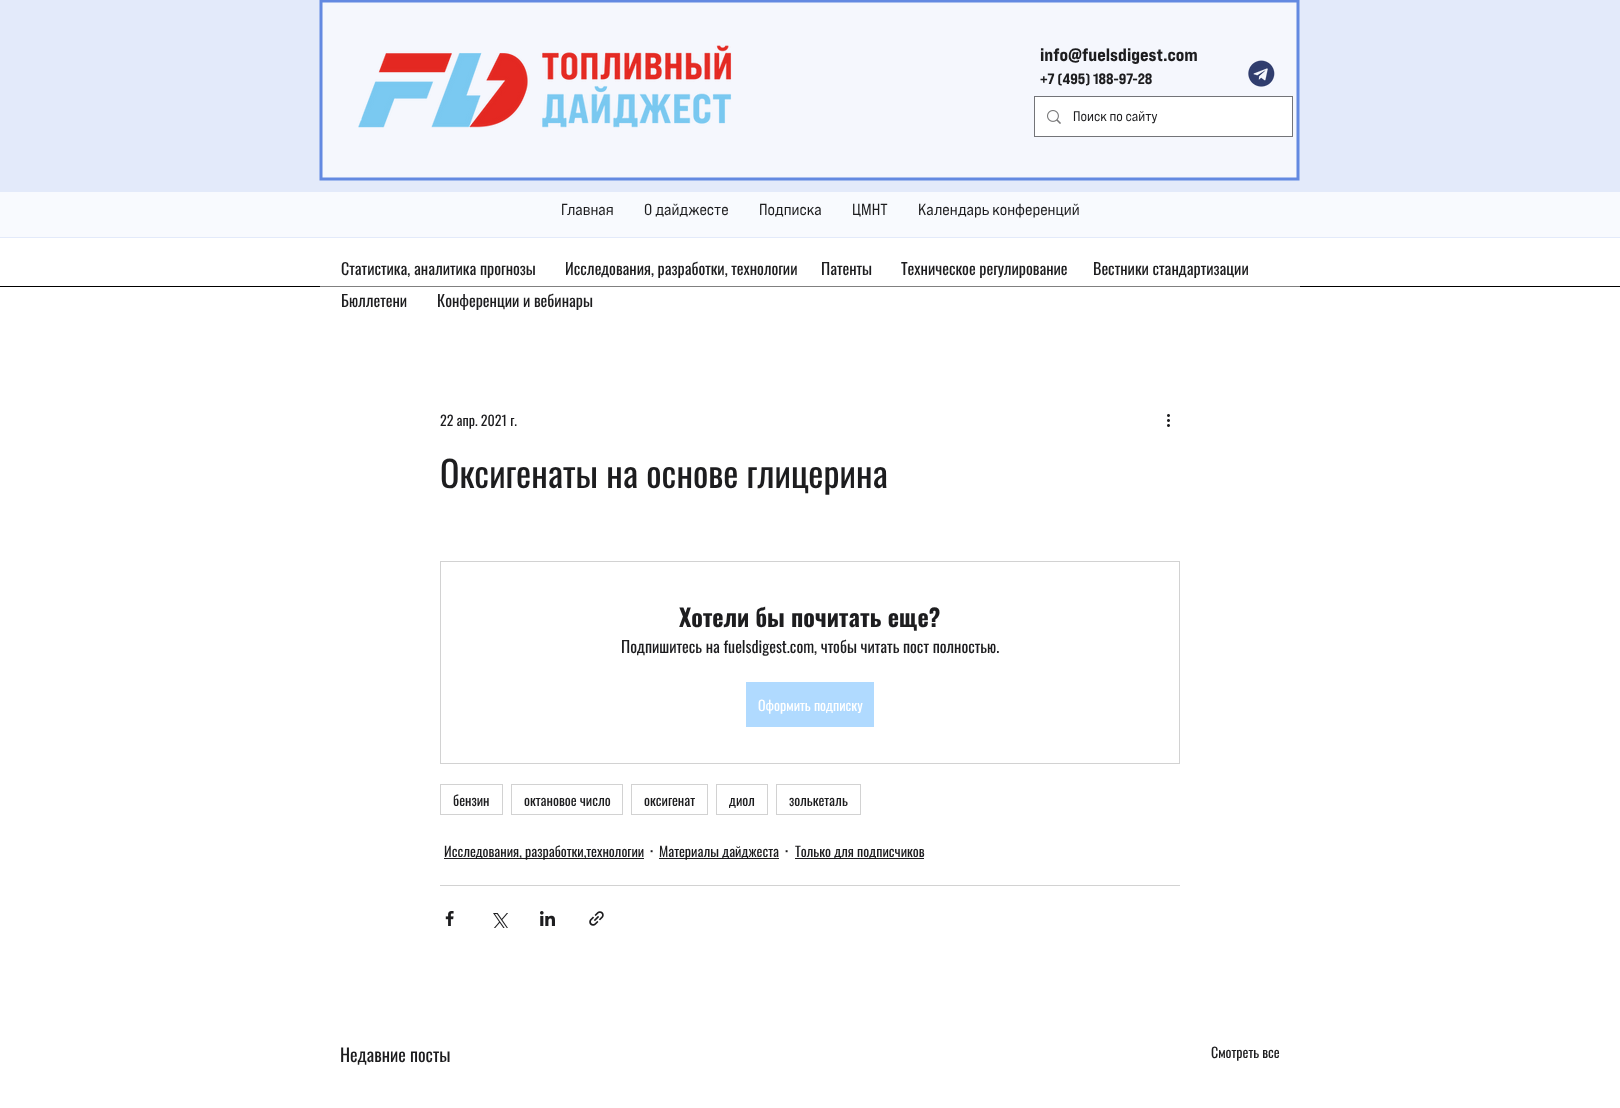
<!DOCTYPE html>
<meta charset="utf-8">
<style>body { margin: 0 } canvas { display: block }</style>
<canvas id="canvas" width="1620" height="1108"></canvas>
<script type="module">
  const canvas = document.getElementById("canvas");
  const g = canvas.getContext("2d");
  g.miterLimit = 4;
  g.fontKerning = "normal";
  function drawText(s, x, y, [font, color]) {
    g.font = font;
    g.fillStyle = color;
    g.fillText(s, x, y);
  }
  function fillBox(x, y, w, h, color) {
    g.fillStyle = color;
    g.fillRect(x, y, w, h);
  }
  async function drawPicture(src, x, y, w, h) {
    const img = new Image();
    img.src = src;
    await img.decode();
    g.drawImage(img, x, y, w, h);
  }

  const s1 = ["800 18px Bebas Neue", "#1D1D1F"];
  const s2 = ["800 15px Bebas Neue", "#1D1D1F"];
  const s3 = ["14px Bebas Neue", "#1D1D1F"];
  const s4 = ["16px Bebas Neue", "#1D1D1F"];
  const s5 = ["16px Oswald", "#1D1D1F"];
  const s6 = ["14px Oswald", "#1D1D1F"];
  const s7 = ["36px Oswald", "#1D1D1F"];
  const s8 = ["bold 24px Oswald", "#1D1D1F"];
  const s9 = ["14px Oswald", "#FFFFFF"];
  const s10 = ["18px Oswald", "#1D1D1F"];

  fillBox(0, 0, 1620, 1108, "#FFFFFF");
  fillBox(0, 0, 1620, 238, "#E3EAFA");
  fillBox(322, 2, 975, 176, "#F5F7FD");
  g.beginPath();
  g.moveTo(1298, 1);
  g.lineTo(1298, 179);
  g.lineTo(321, 179);
  g.lineTo(321, 1);
  g.closePath();
  g.strokeStyle = "#6389E1";
  g.lineWidth = 3;
  g.stroke();
  await drawPicture("pic1.png", 358, 45, 374, 83);
  drawText("info@fuelsdigest.com", 1040, 61, s1);
  drawText("+7 (495) 188-97-28", 1040, 84, s2);
  await drawPicture("pic2.png", 1248, 60, 27, 27);
  g.strokeStyle = "#737478";
  g.lineWidth = 1;
  g.strokeRect(1034.5, 96.5, 258, 40);
  fillBox(1035, 97, 257, 39, "#FFFFFF");
  await drawPicture("pic3.png", 1047, 110, 14, 14);
  drawText("Поиск по сайту", 1073, 121, s3);
  fillBox(0, 192, 1620, 45, "#F8FAFE");
  drawText("Главная", 561, 215, s4);
  drawText("О дайджесте", 644, 215, s4);
  drawText("Подписка", 759, 215, s4);
  drawText("ЦМНТ", 852, 215, s4);
  drawText("Календарь конференций", 918, 215, s4);
  fillBox(0, 286, 1620, 1, "#000000");
  fillBox(320, 286, 980, 1, "#808080");
  drawText("Статистика, аналитика прогнозы", 341, 275, s5);
  drawText("Исследования, разработки, технологии", 565, 275, s5);
  drawText("Патенты", 821, 275, s5);
  drawText("Техническое регулирование", 901, 275, s5);
  drawText("Вестники стандартизации", 1093, 275, s5);
  drawText("Бюллетени", 341, 307, s5);
  drawText("Конференции и вебинары", 437, 307, s5);
  drawText("22 апр. 2021 г.", 440, 426, s6);
  await drawPicture("pic4.png", 1167, 414, 3, 13);
  drawText("Оксигенаты на основе глицерина", 440, 488, s7);
  g.strokeStyle = "#D2D2D2";
  g.strokeRect(440.5, 561.5, 739, 202);
  drawText("Хотели бы почитать еще?", 679, 627, s8);
  drawText("Подпишитесь на fuelsdigest.com, чтобы читать пост полностью.", 621, 653, s5);
  fillBox(746, 682, 128, 45, "#B0DAFF");
  drawText("Оформить подписку", 758, 711, s9);
  g.strokeRect(440.5, 784.5, 62, 30);
  drawText("бензин", 453, 806, s6);
  g.strokeRect(511.5, 784.5, 111, 30);
  drawText("октановое число", 524, 806, s6);
  g.strokeRect(631.5, 784.5, 76, 30);
  drawText("оксигенат", 644, 806, s6);
  g.strokeRect(716.5, 784.5, 51, 30);
  drawText("диол", 729, 806, s6);
  g.strokeRect(776.5, 784.5, 84, 30);
  drawText("золькеталь", 789, 806, s6);
  fillBox(444, 858, 200, 1, "#1D1D1F");
  drawText("Исследования, разработки,технологии", 444, 857, s6);
  drawText("·", 650, 858, s10);
  fillBox(659, 858, 120, 1, "#1D1D1F");
  drawText("Материалы дайджеста", 659, 857, s6);
  drawText("·", 785, 858, s10);
  fillBox(795, 858, 129, 1, "#1D1D1F");
  drawText("Только для подписчиков", 795, 857, s6);
  fillBox(440, 885, 740, 1, "#D2D2D2");
  await drawPicture("pic5.png", 445, 911, 9, 15);
  await drawPicture("pic6.png", 493, 913, 15, 15);
  await drawPicture("pic7.png", 540, 911, 15, 15);
  await drawPicture("pic8.png", 589, 911, 15, 15);
  drawText("Недавние посты", 340, 1062, s10);
  drawText("Смотреть все", 1211, 1058, s6);
</script>
